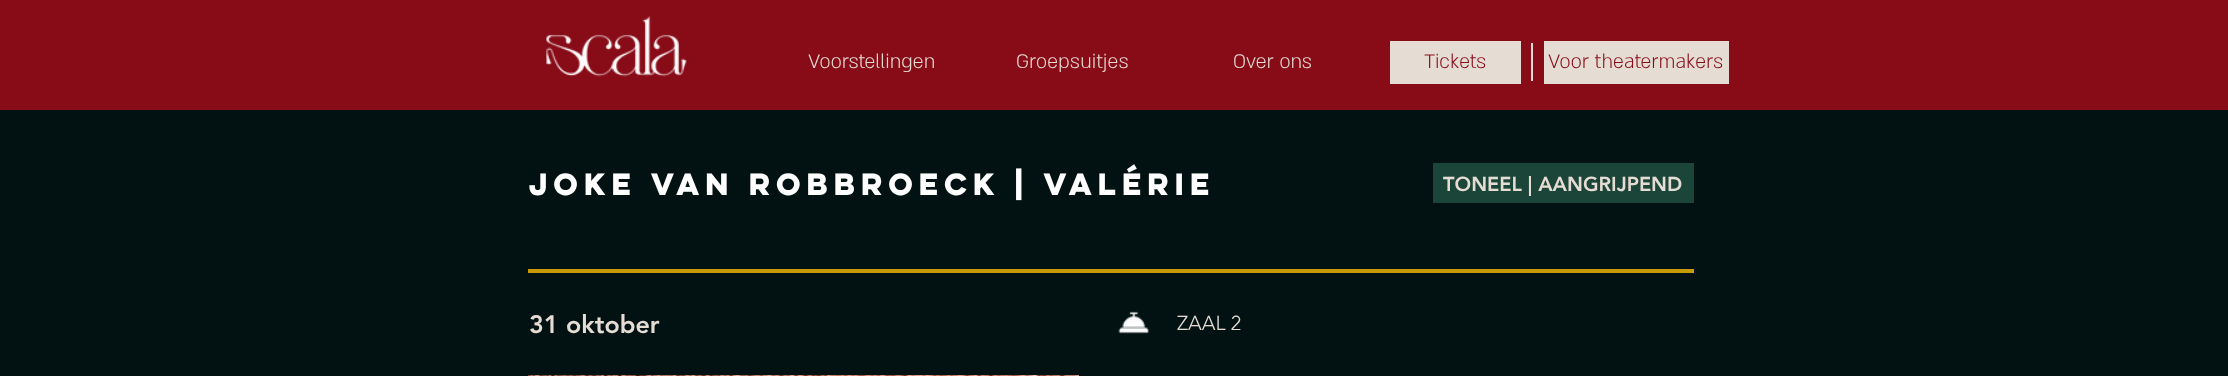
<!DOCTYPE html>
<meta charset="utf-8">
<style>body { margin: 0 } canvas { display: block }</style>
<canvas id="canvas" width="2228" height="376"></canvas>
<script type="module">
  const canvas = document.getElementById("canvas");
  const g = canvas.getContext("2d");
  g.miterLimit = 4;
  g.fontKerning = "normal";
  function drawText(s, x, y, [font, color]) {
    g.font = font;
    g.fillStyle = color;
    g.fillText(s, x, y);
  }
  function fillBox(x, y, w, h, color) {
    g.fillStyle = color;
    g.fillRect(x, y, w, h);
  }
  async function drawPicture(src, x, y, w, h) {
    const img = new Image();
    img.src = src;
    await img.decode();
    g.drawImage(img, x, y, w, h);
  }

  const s1 = ["300 22.5px 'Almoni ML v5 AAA'", "#E5DCD4"];
  const s2 = ["300 22.5px 'Almoni ML v5 AAA'", "#880C18"];
  const s3 = ["bold 27.5px 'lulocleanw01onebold'", "#FFFFFF"];
  const s4 = ["900 20px 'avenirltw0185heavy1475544'", "#E5DCD4"];
  const s5 = ["900 25px 'avenirltw0185heavy1475544'", "#E5DCD4"];
  const s6 = ["300 20px 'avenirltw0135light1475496'", "#E5DCD4"];

  fillBox(0, 0, 2228, 376, "#021212");
  fillBox(0, 0, 2228, 110, "#880C18");
  await drawPicture("pic1.png", 546, 16, 141, 61);
  drawText("Voorstellingen", 808, 68, s1);
  drawText("Groepsuitjes", 1016, 68, s1);
  drawText("Over ons", 1233, 68, s1);
  fillBox(1390, 41, 131, 43, "#E5DCD4");
  drawText("Tickets", 1424, 68, s2);
  fillBox(1531, 43, 2, 38, "#E5DCD4");
  fillBox(1544, 41, 185, 43, "#E5DCD4");
  drawText("Voor theatermakers", 1548, 68, s2);
  drawText("JOKE VAN ROBBROECK | valérie", 529, 195, s3);
  fillBox(1433, 163, 261, 40, "#1A4538");
  drawText("TONEEL | AANGRIJPEND", 1443, 191, s4);
  fillBox(528, 269, 1166, 4, "#C99A08");
  drawText("31 oktober", 529, 333, s5);
  await drawPicture("pic2.png", 1118, 311, 31, 23);
  drawText("ZAAL 2", 1177, 330, s6);
  await drawPicture("pic3.png", 528, 375, 551, 1);
</script>
